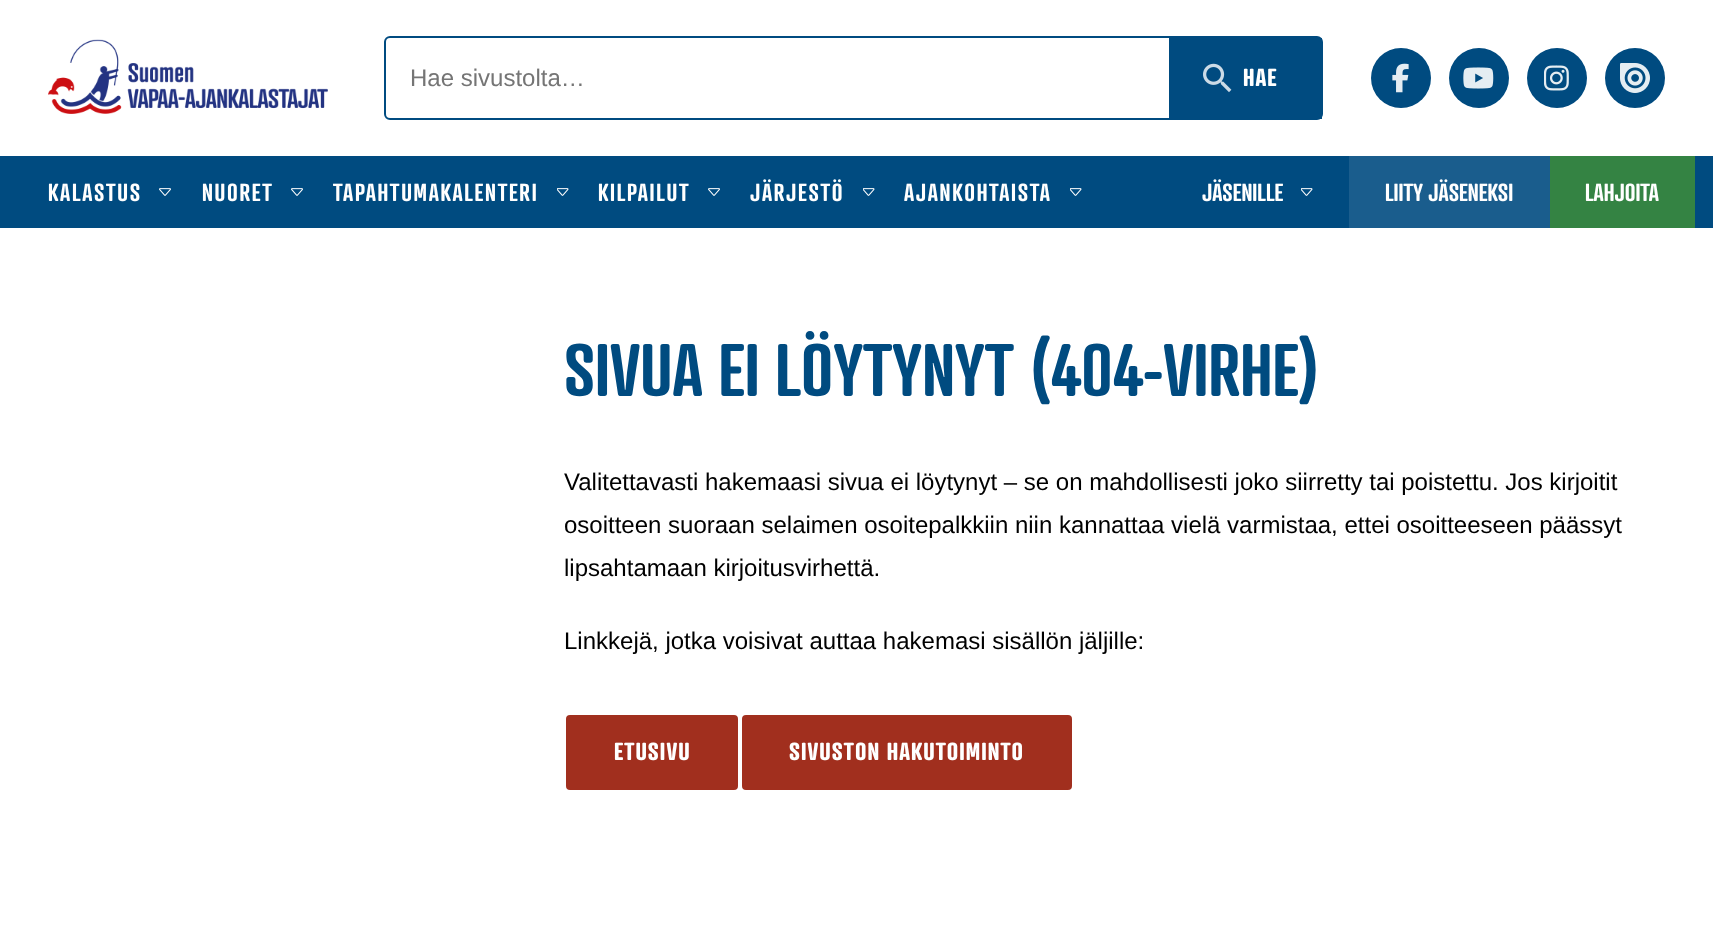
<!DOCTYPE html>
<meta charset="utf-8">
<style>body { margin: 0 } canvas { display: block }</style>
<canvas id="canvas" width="1713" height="931"></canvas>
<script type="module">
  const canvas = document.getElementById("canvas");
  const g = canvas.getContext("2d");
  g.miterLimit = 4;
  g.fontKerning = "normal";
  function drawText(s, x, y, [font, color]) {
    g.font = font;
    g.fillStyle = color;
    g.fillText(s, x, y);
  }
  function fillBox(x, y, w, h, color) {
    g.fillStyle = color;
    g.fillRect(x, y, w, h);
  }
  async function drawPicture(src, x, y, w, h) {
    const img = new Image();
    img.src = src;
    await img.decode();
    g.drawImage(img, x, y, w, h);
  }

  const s1 = ["24px Liberation Sans", "#757575"];
  const s2 = ["bold 24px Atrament", "#FFFFFF"];
  const s3 = ["600 24px Atrament", "#FFFFFF"];
  const s4 = ["600 72px Atrament", "#004B80"];
  const s5 = ["24px Liberation Sans", "#000000"];

  fillBox(0, 0, 1713, 931, "#FFFFFF");
  await drawPicture("pic1.png", 48, 39, 280, 75);
  g.beginPath();
  g.roundRect(385, 37, 937, 82, 5);
  g.strokeStyle = "#004B80";
  g.lineWidth = 2;
  g.stroke();
  drawText("Hae sivustolta…", 410, 86, s1);
  fillBox(1169, 38, 153, 81, "#004B80");
  await drawPicture("pic2.png", 1203, 63, 29, 30);
  g.letterSpacing = "1.05px";
  drawText("HAE", 1243, 86, s2);
  g.fillStyle = "#004B80";
  g.beginPath();
  g.arc(1401, 78, 30, 0, Math.PI * 2);
  g.fill();
  await drawPicture("pic3.png", 1392, 63, 17, 30);
  g.beginPath();
  g.arc(1479, 78, 30, 0, Math.PI * 2);
  g.fill();
  await drawPicture("pic4.png", 1463, 67, 31, 22);
  g.beginPath();
  g.arc(1557, 78, 30, 0, Math.PI * 2);
  g.fill();
  await drawPicture("pic5.png", 1544, 65, 25, 26);
  g.beginPath();
  g.arc(1635, 78, 30, 0, Math.PI * 2);
  g.fill();
  await drawPicture("pic6.png", 1620, 63, 30, 30);
  fillBox(0, 156, 1713, 72, "#004B80");
  g.letterSpacing = "1.7px";
  drawText("KALASTUS", 48, 201, s3);
  await drawPicture("pic7.png", 159, 188, 12, 8);
  drawText("NUORET", 202, 201, s3);
  await drawPicture("pic7.png", 291, 188, 12, 8);
  drawText("TAPAHTUMAKALENTERI", 333, 201, s3);
  await drawPicture("pic8.png", 557, 188, 12, 8);
  drawText("KILPAILUT", 598, 201, s3);
  await drawPicture("pic7.png", 708, 188, 12, 8);
  drawText("JÄRJESTÖ", 750, 201, s3);
  await drawPicture("pic8.png", 863, 188, 12, 8);
  drawText("AJANKOHTAISTA", 904, 201, s3);
  await drawPicture("pic8.png", 1070, 188, 12, 8);
  g.letterSpacing = "0px";
  drawText("JÄSENILLE", 1202, 201, s3);
  await drawPicture("pic8.png", 1301, 188, 12, 8);
  fillBox(1349, 156, 201, 72, "#1A5D8D");
  drawText("LIITY JÄSENEKSI", 1385, 201, s3);
  fillBox(1550, 156, 145, 72, "#348343");
  drawText("LAHJOITA", 1585, 201, s3);
  drawText("SIVUA EI LÖYTYNYT (404-VIRHE)", 564, 396, s4);
  drawText("Valitettavasti hakemaasi sivua ei löytynyt – se on mahdollisesti joko siirretty tai poistettu. Jos kirjoitit", 564, 490, s5);
  drawText("osoitteen suoraan selaimen osoitepalkkiin niin kannattaa vielä varmistaa, ettei osoitteeseen päässyt", 564, 533, s5);
  drawText("lipsahtamaan kirjoitusvirhettä.", 564, 576, s5);
  drawText("Linkkejä, jotka voisivat auttaa hakemasi sisällön jäljille:", 564, 649, s5);
  g.fillStyle = "#A12F1E";
  g.beginPath();
  g.roundRect(565, 714, 174, 77, 5);
  g.fill();
  g.strokeStyle = "#FFFFFF";
  g.stroke();
  g.letterSpacing = "1.05px";
  drawText("ETUSIVU", 614, 760, s2);
  g.fillStyle = "#A12F1E";
  g.beginPath();
  g.roundRect(741, 714, 332, 77, 5);
  g.fill();
  g.stroke();
  drawText("SIVUSTON HAKUTOIMINTO", 789, 760, s2);
</script>
